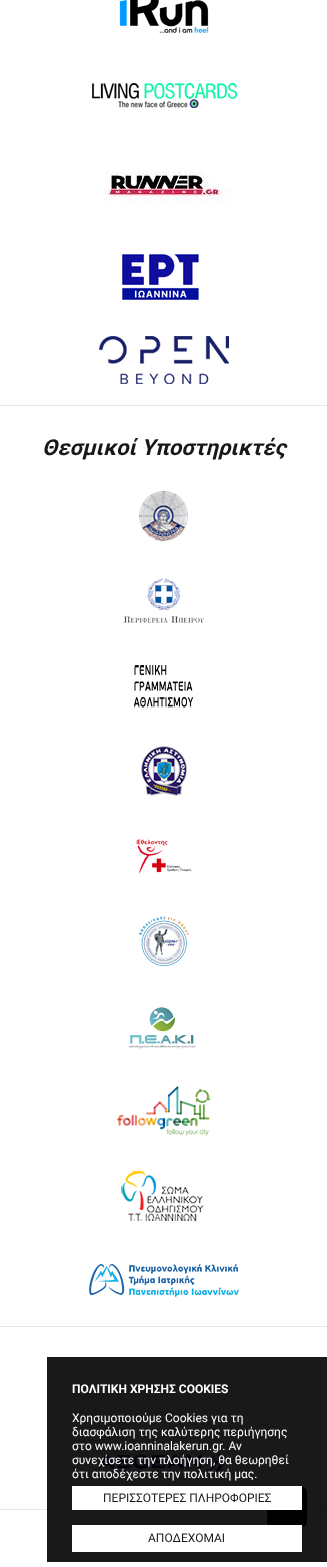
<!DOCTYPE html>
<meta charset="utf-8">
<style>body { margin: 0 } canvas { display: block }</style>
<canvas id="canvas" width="327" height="1567"></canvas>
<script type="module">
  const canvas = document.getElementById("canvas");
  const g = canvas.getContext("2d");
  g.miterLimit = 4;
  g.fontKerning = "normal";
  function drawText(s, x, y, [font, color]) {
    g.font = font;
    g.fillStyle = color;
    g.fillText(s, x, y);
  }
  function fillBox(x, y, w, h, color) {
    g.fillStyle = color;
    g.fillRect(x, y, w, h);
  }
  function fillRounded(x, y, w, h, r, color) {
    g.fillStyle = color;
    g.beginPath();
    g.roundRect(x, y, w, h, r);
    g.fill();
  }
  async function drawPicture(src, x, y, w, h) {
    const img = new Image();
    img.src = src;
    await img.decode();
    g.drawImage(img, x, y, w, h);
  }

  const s1 = ["italic bold 22px Roboto", "#1A171B"];
  const s2 = ["bold 12px Roboto", "#FFFFFF"];
  const s3 = ["12px Roboto", "#FFFFFF"];
  const s4 = ["12px Roboto", "#1A171B"];

  fillBox(0, 0, 327, 1567, "#FFFFFF");
  fillBox(0, 405, 327, 1, "#E6E6E6");
  await drawPicture("pic1.png", 119, 0, 90, 33);
  await drawPicture("pic2.png", 92, 83, 145, 25);
  await drawPicture("pic3.png", 105, 171, 128, 32);
  await drawPicture("pic4.png", 122, 253, 77, 47);
  await drawPicture("pic5.png", 99, 336, 130, 48);
  fillBox(0, 1326, 327, 1, "#E6E6E6");
  drawText("Θεσμικοί Υποστηρικτές", 42, 455, s1);
  await drawPicture("pic6.png", 139, 491, 49, 50);
  await drawPicture("pic7.png", 123, 578, 81, 45);
  await drawPicture("pic8.png", 134, 665, 59, 43);
  await drawPicture("pic9.png", 141, 746, 46, 50);
  await drawPicture("pic10.png", 136, 839, 56, 34);
  await drawPicture("pic11.png", 139, 916, 50, 50);
  await drawPicture("pic12.png", 129, 1007, 67, 42);
  await drawPicture("pic13.png", 116, 1086, 95, 50);
  await drawPicture("pic14.png", 121, 1171, 84, 50);
  await drawPicture("pic15.png", 89, 1264, 150, 33);
  fillBox(0, 1509, 327, 1, "#E6E6E6");
  await drawPicture("pic16.png", 97, 1447, 131, 28);
  fillRounded(267, 1487, 40, 40, 5, "#000000");
  fillBox(47, 1357, 280, 205, "rgba(0, 0, 0, 0.9)");
  drawText("ΠΟΛΙΤΙΚΗ ΧΡΗΣΗΣ COOKIES", 72, 1393, s2);
  drawText("Χρησιμοποιούμε Cookies για τη", 72, 1422, s3);
  drawText("διασφάλιση της καλύτερης περιήγησης", 72, 1436, s3);
  drawText("στο www.ioanninalakerun.gr. Αν", 72, 1450, s3);
  drawText("συνεχίσετε την πλοήγηση, θα θεωρηθεί", 72, 1464, s3);
  drawText("ότι αποδέχεστε την πολιτική μας.", 72, 1478, s3);
  fillBox(72, 1486, 230, 24, "#FFFFFF");
  drawText("ΠΕΡΙΣΣΟΤΕΡΕΣ ΠΛΗΡΟΦΟΡΙΕΣ", 103, 1502, s4);
  fillBox(72, 1525, 230, 27, "#FFFFFF");
  drawText("ΑΠΟΔΕΧΟΜΑΙ", 148, 1542, s4);
</script>
